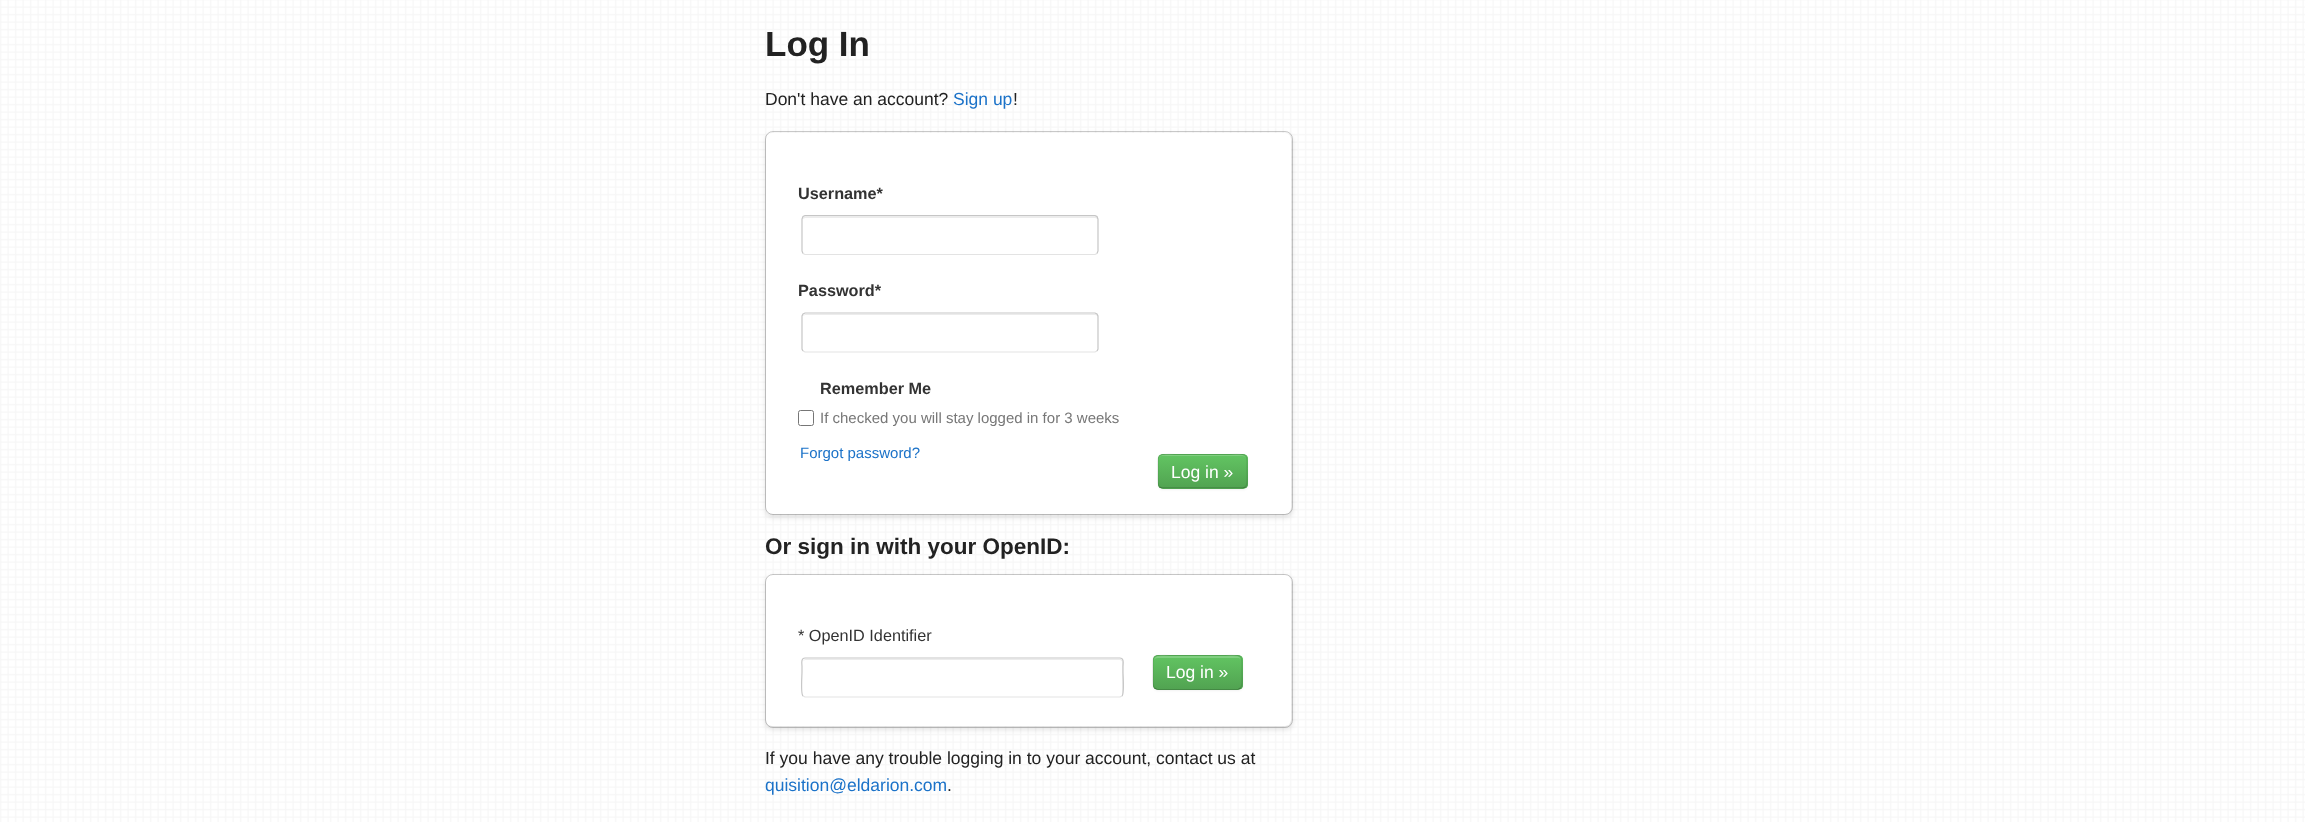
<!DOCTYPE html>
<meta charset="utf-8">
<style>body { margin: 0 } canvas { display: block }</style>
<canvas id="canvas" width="2305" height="822"></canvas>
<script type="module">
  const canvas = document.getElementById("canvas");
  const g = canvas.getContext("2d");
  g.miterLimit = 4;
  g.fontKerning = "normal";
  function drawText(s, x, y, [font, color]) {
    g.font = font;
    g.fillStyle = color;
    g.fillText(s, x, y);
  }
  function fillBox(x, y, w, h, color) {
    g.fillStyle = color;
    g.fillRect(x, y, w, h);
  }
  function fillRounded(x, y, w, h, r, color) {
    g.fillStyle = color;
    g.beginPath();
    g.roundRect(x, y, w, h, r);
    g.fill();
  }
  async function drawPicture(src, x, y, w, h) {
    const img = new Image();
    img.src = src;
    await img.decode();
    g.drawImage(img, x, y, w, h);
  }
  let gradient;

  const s1 = ["bold 35px Liberation Sans", "#222222"];
  const s2 = ["17.5px Liberation Sans", "#222222"];
  const s3 = ["17.5px Liberation Sans", "#1B72C8"];
  const s4 = ["bold 16.25px Liberation Sans", "#333333"];
  const s5 = ["15px Liberation Sans", "#777777"];
  const s6 = ["15px Liberation Sans", "#1B72C8"];
  const s7 = ["17.5px Liberation Sans", "#FFFFFF"];
  const s8 = ["bold 22.5px Liberation Sans", "#222222"];
  const s9 = ["16.25px Liberation Sans", "#333333"];

  fillBox(0, 0, 2305, 822, "#FFFFFF");
  await drawPicture("pic1.png", 0, 0, 2305, 822);
  drawText("Log In", 765, 56, s1);
  drawText("Don't have an account?", 765, 105, s2);
  drawText("Sign up", 953, 105, s3);
  drawText("!", 1013, 105, s2);
  g.fillStyle = "rgba(0, 0, 0, 0.1)";
  g.filter = "blur(2.5px)";
  g.beginPath();
  g.roundRect(765, 134, 528, 384, 8);
  g.fill();
  g.filter = "none";
  fillRounded(766, 133, 525, 381, 6, "#FFFFFF");
  g.beginPath();
  g.roundRect(765.5, 131.5, 527, 383, 7.5);
  g.strokeStyle = "rgba(0, 0, 0, 0.2)";
  g.stroke();
  drawText("Username*", 798, 199, s4);
  g.fillStyle = "#ECECEC";
  g.beginPath();
  g.moveTo(805, 218);
  g.lineTo(1095, 218);
  g.bezierCurveTo(1096, 218, 1098, 219, 1098, 220);
  g.bezierCurveTo(1098, 218, 1098, 216, 1096, 216);
  g.lineTo(806, 216);
  g.bezierCurveTo(804, 216, 803, 217, 803, 219);
  g.closePath();
  g.fill();
  g.beginPath();
  g.moveTo(1097, 253.5);
  g.lineTo(1095, 254.5);
  g.lineTo(805, 254.5);
  g.lineTo(803, 253.5);
  g.strokeStyle = "#E3E3E3";
  g.lineWidth = 1.2;
  g.stroke();
  g.beginPath();
  g.moveTo(803, 253.5);
  g.lineTo(802, 251);
  g.lineTo(802, 219);
  g.lineTo(803, 216.5);
  g.lineTo(805, 215.5);
  g.lineTo(1095, 215.5);
  g.lineTo(1097, 216.5);
  g.lineTo(1098, 219);
  g.lineTo(1098, 251);
  g.lineTo(1097, 253.5);
  g.strokeStyle = "#C6C6C6";
  g.stroke();
  drawText("Password*", 798, 296, s4);
  g.fillStyle = "#ECECEC";
  g.beginPath();
  g.moveTo(805, 315);
  g.lineTo(1095, 315);
  g.bezierCurveTo(1096, 315, 1098, 316, 1098, 318);
  g.lineTo(1098, 316);
  g.bezierCurveTo(1098, 315, 1097, 314, 1096, 314);
  g.lineTo(806, 314);
  g.bezierCurveTo(804, 314, 803, 315, 803, 316);
  g.closePath();
  g.fill();
  g.beginPath();
  g.moveTo(1097, 351);
  g.lineTo(1095, 352);
  g.lineTo(805, 352);
  g.lineTo(803, 351);
  g.strokeStyle = "#E3E3E3";
  g.stroke();
  g.beginPath();
  g.moveTo(803, 351);
  g.lineTo(802, 349);
  g.lineTo(802, 316);
  g.lineTo(803, 314);
  g.lineTo(805, 313);
  g.lineTo(1095, 313);
  g.lineTo(1097, 314);
  g.lineTo(1098, 316);
  g.lineTo(1098, 349);
  g.lineTo(1097, 351);
  g.strokeStyle = "#C6C6C6";
  g.stroke();
  drawText("Remember Me", 820, 394, s4);
  g.beginPath();
  g.roundRect(798.5, 410.5, 15, 15, 2);
  g.strokeStyle = "#767676";
  g.lineWidth = 1;
  g.stroke();
  drawText("If checked you will stay logged in for 3 weeks", 820, 423, s5);
  drawText("Forgot password?", 800, 458, s6);
  g.fillStyle = "rgba(0, 0, 0, 0.05)";
  g.filter = "blur(1px)";
  g.beginPath();
  g.roundRect(1158, 455, 90, 35, 5);
  g.fill();
  g.filter = "none";
  fillRounded(1158, 454, 90, 35, 5, "#5BB75B");
  g.save();
  g.beginPath();
  g.roundRect(1158, 454, 90, 35, 5);
  g.clip();
  gradient = g.createLinearGradient(1203, 455, 1203, 488);
  gradient.addColorStop(0, "#62C462");
  gradient.addColorStop(1, "#51A351");
  g.fillStyle = gradient;
  g.fillRect(1158, 455, 90, 33);
  g.restore();
  g.fillStyle = "rgba(255, 255, 255, 0.2)";
  g.beginPath();
  g.moveTo(1162, 456);
  g.lineTo(1242, 456);
  g.bezierCurveTo(1245, 456, 1246, 458, 1246, 460);
  g.bezierCurveTo(1246, 452, 1234, 455, 1229, 455);
  g.lineTo(1176, 455);
  g.bezierCurveTo(1171, 455, 1159, 452, 1159, 460);
  g.bezierCurveTo(1159, 458, 1160, 456, 1162, 456);
  g.closePath();
  g.fill();
  g.beginPath();
  g.moveTo(1245.5, 487);
  g.lineTo(1243, 488);
  g.lineTo(1162, 488);
  g.lineTo(1159.5, 487);
  g.strokeStyle = "rgba(0, 0, 0, 0.25)";
  g.lineWidth = 1.2;
  g.stroke();
  g.beginPath();
  g.moveTo(1159.5, 487);
  g.bezierCurveTo(1157, 484.5, 1158, 474.5, 1158, 471);
  g.bezierCurveTo(1158, 452, 1155.5, 454.5, 1176, 454.5);
  g.lineTo(1229, 454.5);
  g.bezierCurveTo(1249.5, 454.5, 1247, 452, 1247, 471);
  g.bezierCurveTo(1247, 474.5, 1248, 484.5, 1245.5, 487);
  g.strokeStyle = "rgba(0, 0, 0, 0.1)";
  g.stroke();
  drawText("Log in »", 1171, 478, s7);
  drawText("Or sign in with your OpenID:", 765, 554, s8);
  g.fillStyle = "rgba(0, 0, 0, 0.1)";
  g.filter = "blur(2.5px)";
  g.beginPath();
  g.roundRect(765, 576, 528, 154, 8);
  g.fill();
  g.filter = "none";
  fillRounded(766, 575, 525, 151, 6, "#FFFFFF");
  g.beginPath();
  g.roundRect(765.5, 574.5, 527, 153, 7.5);
  g.strokeStyle = "rgba(0, 0, 0, 0.2)";
  g.lineWidth = 1;
  g.stroke();
  drawText("* OpenID Identifier", 798, 641, s9);
  g.fillStyle = "#ECECEC";
  g.beginPath();
  g.moveTo(805, 660);
  g.lineTo(1120, 660);
  g.bezierCurveTo(1121, 660, 1122, 661, 1122, 662);
  g.lineTo(1122, 696);
  g.bezierCurveTo(1123, 695, 1123, 694, 1123, 694);
  g.lineTo(1123, 662);
  g.bezierCurveTo(1123, 660, 1122, 659, 1120, 659);
  g.lineTo(806, 659);
  g.bezierCurveTo(804, 659, 804, 660, 803, 661);
  g.closePath();
  g.fill();
  g.beginPath();
  g.moveTo(1122, 696);
  g.lineTo(1120, 697);
  g.lineTo(805, 697);
  g.lineTo(803, 696);
  g.strokeStyle = "#E3E3E3";
  g.lineWidth = 1.2;
  g.stroke();
  g.beginPath();
  g.moveTo(803, 696);
  g.bezierCurveTo(800.5, 694, 802, 676, 802, 672);
  g.lineTo(802, 666.5);
  g.bezierCurveTo(802, 664.5, 800.5, 658, 805, 658);
  g.lineTo(1120, 658);
  g.bezierCurveTo(1124.5, 658, 1123, 664.5, 1123, 666.5);
  g.lineTo(1123, 672);
  g.bezierCurveTo(1123, 676, 1124.5, 694, 1122, 696);
  g.strokeStyle = "#C6C6C6";
  g.stroke();
  g.fillStyle = "rgba(0, 0, 0, 0.05)";
  g.filter = "blur(1px)";
  g.beginPath();
  g.roundRect(1153, 656, 90, 35, 5);
  g.fill();
  g.filter = "none";
  fillRounded(1153, 655, 90, 35, 5, "#5BB75B");
  g.save();
  g.beginPath();
  g.roundRect(1153, 655, 90, 35, 5);
  g.clip();
  gradient = g.createLinearGradient(1198, 656, 1198, 689);
  gradient.addColorStop(0, "#62C462");
  gradient.addColorStop(1, "#51A351");
  g.fillStyle = gradient;
  g.fillRect(1153, 656, 90, 33);
  g.restore();
  g.fillStyle = "rgba(255, 255, 255, 0.2)";
  g.beginPath();
  g.moveTo(1158, 658);
  g.lineTo(1238, 658);
  g.bezierCurveTo(1240, 658, 1241, 659, 1241, 661);
  g.bezierCurveTo(1241, 653, 1229, 656, 1224, 656);
  g.lineTo(1171, 656);
  g.bezierCurveTo(1166, 656, 1154, 653, 1154, 661);
  g.bezierCurveTo(1154, 659, 1155, 658, 1158, 658);
  g.closePath();
  g.fill();
  g.beginPath();
  g.moveTo(1240.5, 688);
  g.lineTo(1238, 689.5);
  g.lineTo(1157, 689.5);
  g.lineTo(1154.5, 688);
  g.strokeStyle = "rgba(0, 0, 0, 0.25)";
  g.stroke();
  g.beginPath();
  g.moveTo(1154.5, 688);
  g.bezierCurveTo(1152, 685.5, 1153, 675.5, 1153, 672.5);
  g.bezierCurveTo(1153, 653, 1150.5, 655.5, 1171, 655.5);
  g.lineTo(1224, 655.5);
  g.bezierCurveTo(1244.5, 655.5, 1242, 653, 1242, 672.5);
  g.bezierCurveTo(1242, 675.5, 1243, 685.5, 1240.5, 688);
  g.strokeStyle = "rgba(0, 0, 0, 0.1)";
  g.stroke();
  drawText("Log in »", 1166, 678, s7);
  drawText("If you have any trouble logging in to your account, contact us at", 765, 764, s2);
  drawText("quisition@eldarion.com", 765, 791, s3);
  drawText(".", 947, 791, s2);
</script>
